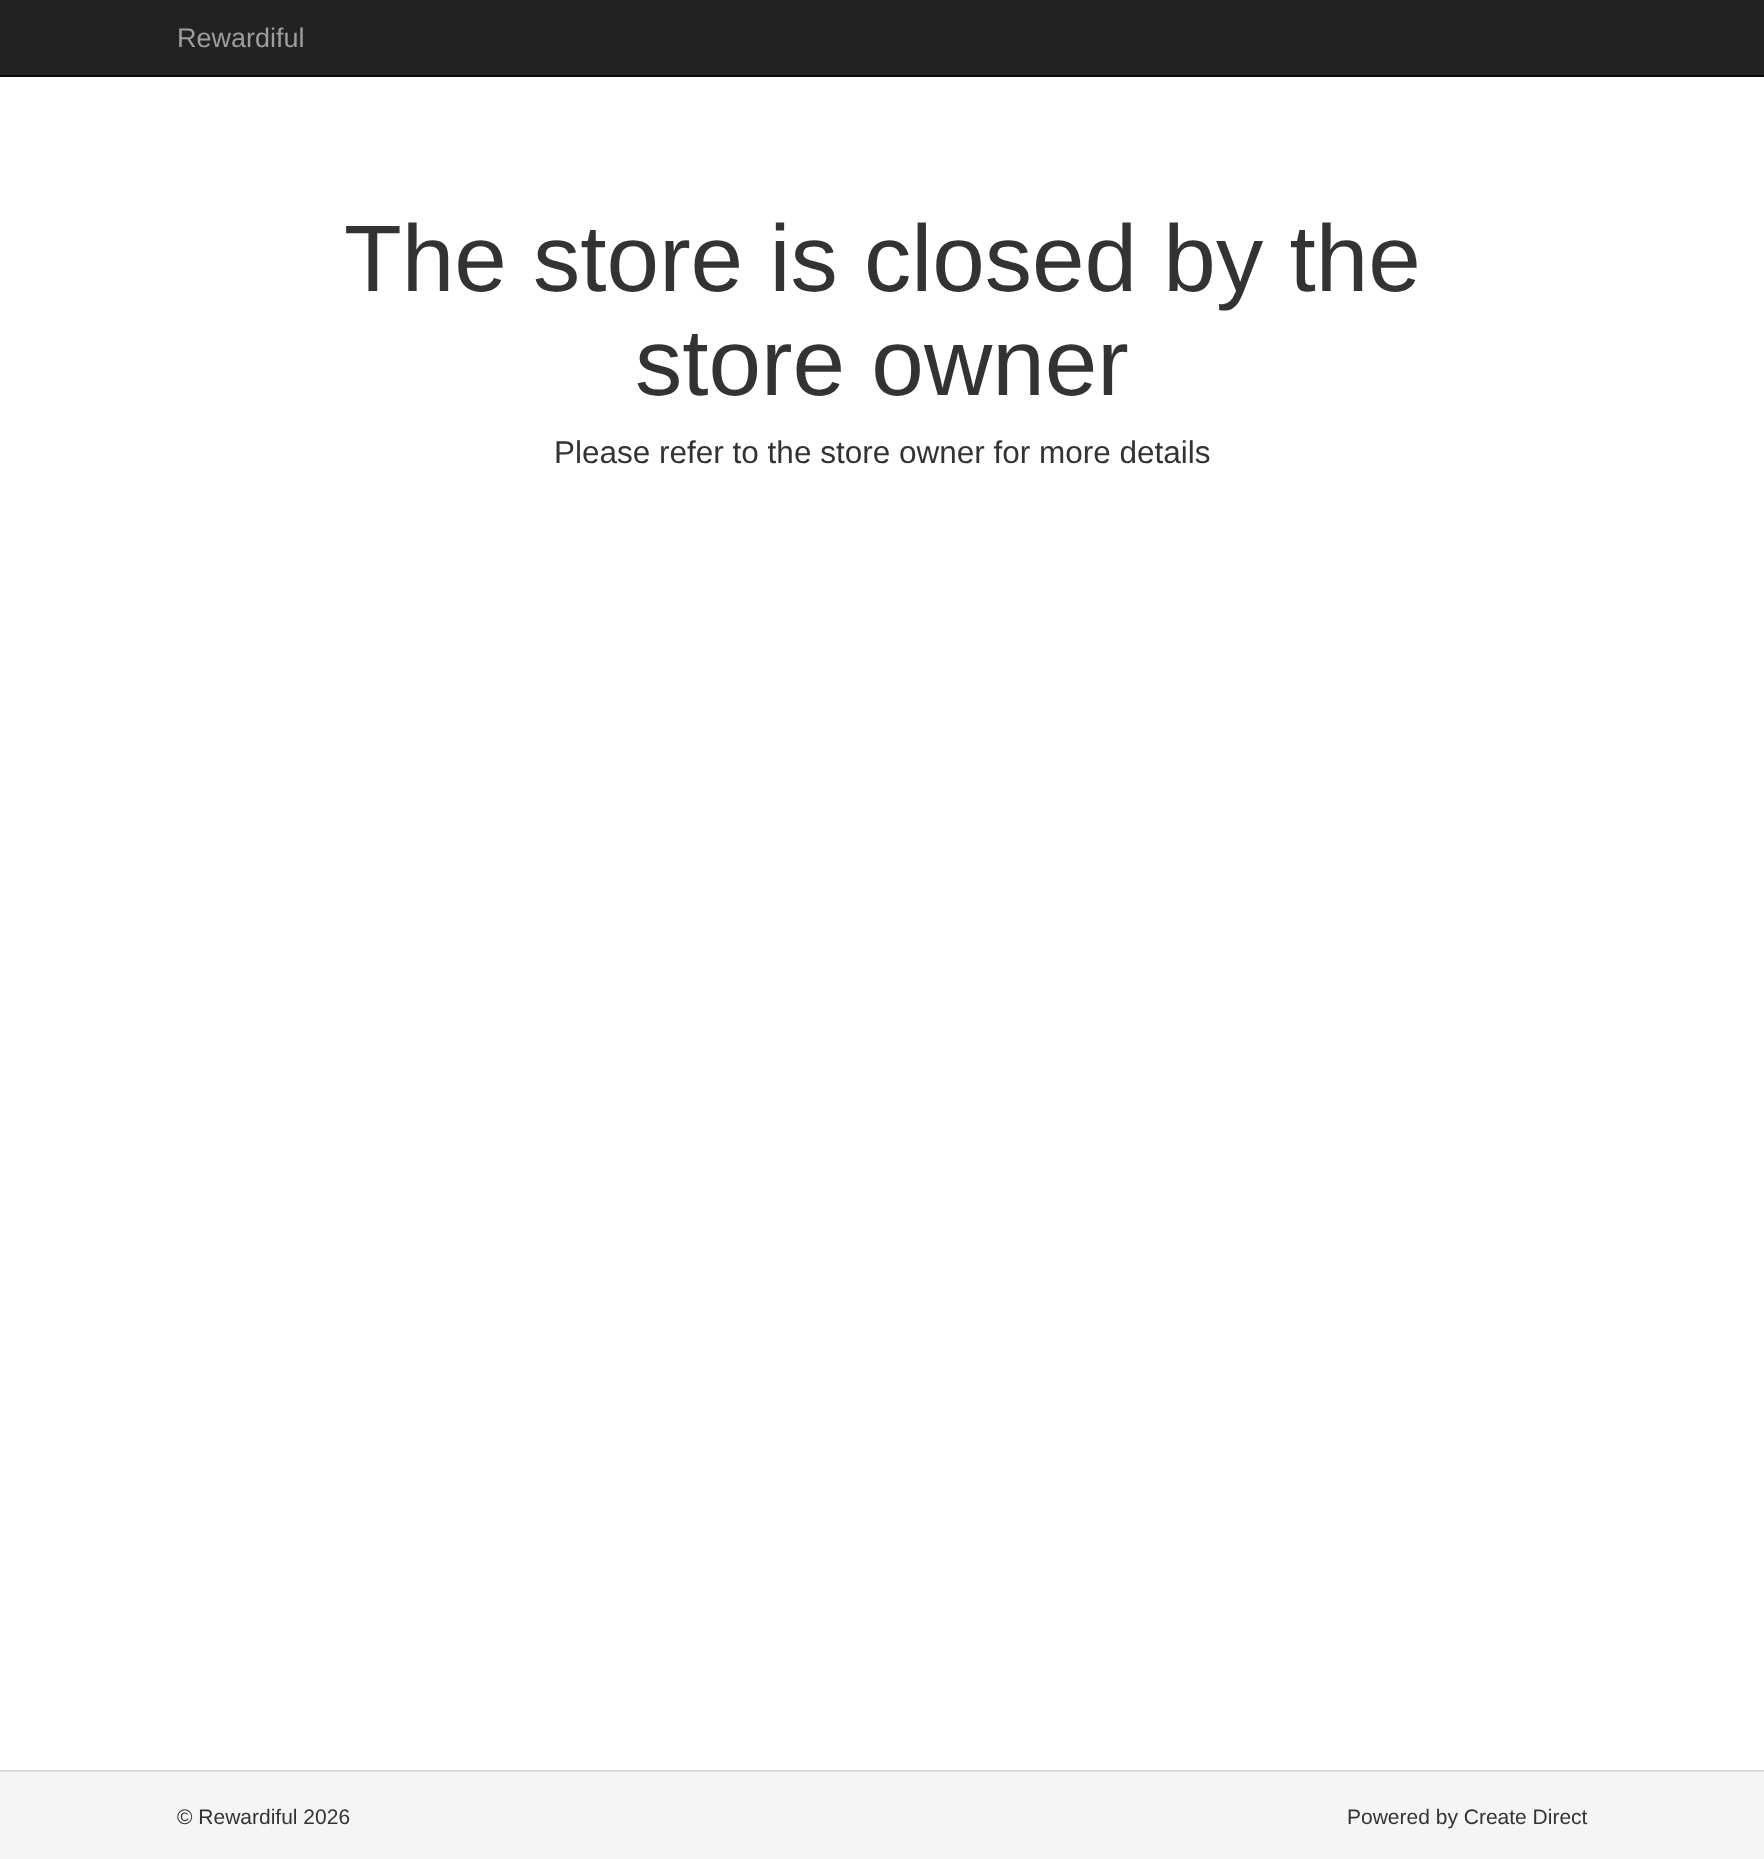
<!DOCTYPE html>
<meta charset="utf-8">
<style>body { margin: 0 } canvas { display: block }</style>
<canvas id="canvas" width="1764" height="1859"></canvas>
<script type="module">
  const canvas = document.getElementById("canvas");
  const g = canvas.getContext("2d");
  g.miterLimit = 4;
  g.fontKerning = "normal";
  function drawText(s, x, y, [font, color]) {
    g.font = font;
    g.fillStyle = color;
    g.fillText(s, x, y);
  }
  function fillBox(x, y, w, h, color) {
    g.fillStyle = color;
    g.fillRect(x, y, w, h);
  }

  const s1 = ["27px Liberation Sans", "#9D9D9D"];
  const s2 = ["94.5px Liberation Sans", "#333333"];
  const s3 = ["31.5px Liberation Sans", "#333333"];
  const s4 = ["21px Liberation Sans", "#333333"];

  fillBox(0, 0, 1764, 1859, "#FFFFFF");
  fillBox(0, 0, 1764, 75, "#222222");
  fillBox(0, 75, 1764, 2, "#080808");
  drawText("Rewardiful", 177, 47, s1);
  drawText("The store is closed by the", 344, 291, s2);
  drawText("store owner", 635, 395, s2);
  drawText("Please refer to the store owner for more details", 554, 463, s3);
  fillBox(0, 1772, 1764, 87, "#F5F5F5");
  fillBox(0, 1770, 1764, 2, "#DDDDDD");
  drawText("© Rewardiful 2026", 177, 1824, s4);
  drawText("Powered by Create Direct", 1347, 1824, s4);
</script>
